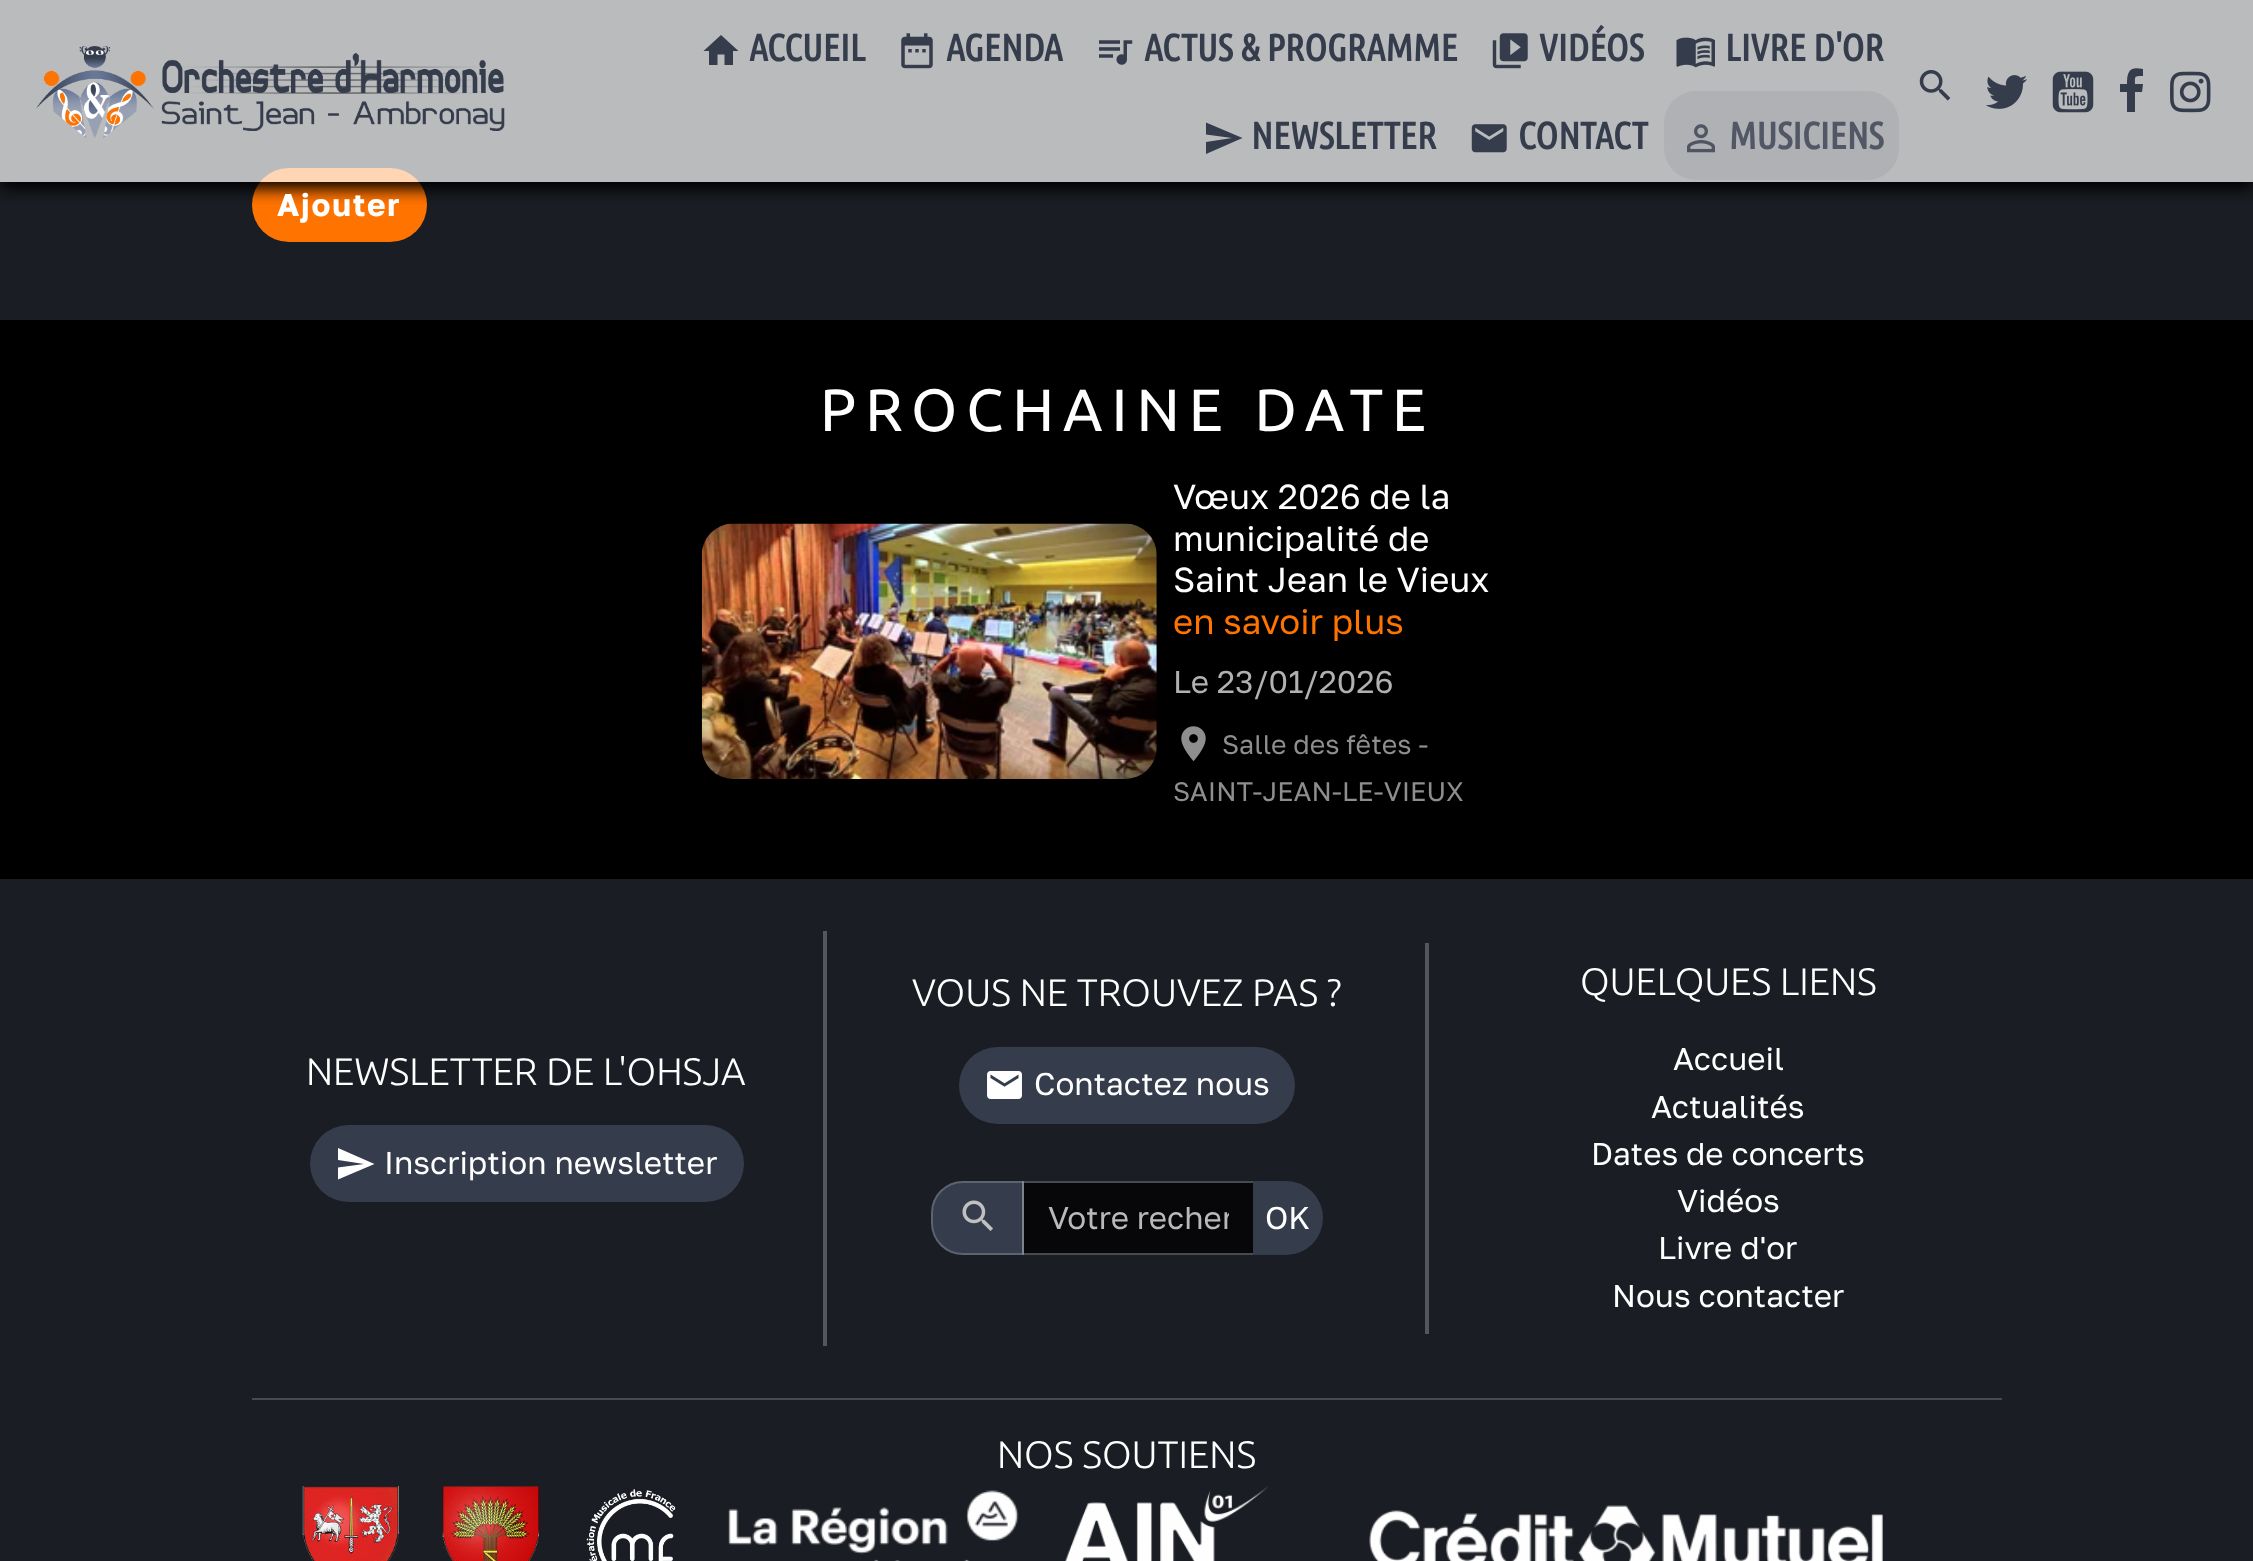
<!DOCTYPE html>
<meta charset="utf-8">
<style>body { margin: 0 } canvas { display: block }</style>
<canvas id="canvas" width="2253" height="1561"></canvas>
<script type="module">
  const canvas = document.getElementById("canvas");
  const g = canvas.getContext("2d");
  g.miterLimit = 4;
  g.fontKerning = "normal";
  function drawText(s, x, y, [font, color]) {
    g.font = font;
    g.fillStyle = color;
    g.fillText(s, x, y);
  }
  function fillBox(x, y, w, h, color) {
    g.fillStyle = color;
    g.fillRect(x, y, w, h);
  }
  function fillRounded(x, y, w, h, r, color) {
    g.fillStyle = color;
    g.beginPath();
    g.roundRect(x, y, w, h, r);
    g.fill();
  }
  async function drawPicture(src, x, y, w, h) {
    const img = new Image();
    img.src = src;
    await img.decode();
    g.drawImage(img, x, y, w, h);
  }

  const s1 = ["bold 37.75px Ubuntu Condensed", "#353C4C"];
  const s2 = ["bold 37.75px Ubuntu Condensed", "#515764"];
  const s3 = ["bold 31.5px Golos Text", "#FFFFFF"];
  const s4 = ["59.5px Ubuntu", "#FFFFFF"];
  const s5 = ["34.75px Golos Text", "#FFFFFF"];
  const s6 = ["34.75px Golos Text", "#FF7300"];
  const s7 = ["31.5px Golos Text", "#B1B1B1"];
  const s8 = ["26.75px Golos Text", "#8E8E8E"];
  const s9 = ["300 38.25px Ubuntu", "#FFFFFF"];
  const s10 = ["31.5px Golos Text", "#FFFFFF"];
  const s11 = ["31.5px Golos Text", "#B9B9B9"];

  fillBox(0, 0, 2253, 1561, "#1A1D23");
  fillRounded(252, 168, 175, 74, 37, "#FF7300");
  g.save();
  g.beginPath();
  g.rect(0, 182, 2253, 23);
  g.clip();
  g.fillStyle = "#000000";
  g.filter = "blur(8px)";
  g.beginPath();
  g.rect(0, 7, 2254, 182);
  g.fill();
  g.filter = "none";
  g.restore();
  fillBox(0, 0, 2253, 182, "rgba(255, 255, 255, 0.7)");
  await drawPicture("pic1.png", 36, 46, 469, 92);
  g.fillStyle = "#353C4C";
  g.beginPath();
  g.moveTo(717.5, 65);
  g.lineTo(709, 65);
  g.lineTo(709, 51);
  g.lineTo(703.5, 51);
  g.lineTo(721, 35);
  g.lineTo(738.5, 51);
  g.lineTo(733, 51);
  g.lineTo(733, 65);
  g.lineTo(724.5, 65);
  g.lineTo(724.5, 54.5);
  g.lineTo(717.5, 54.5);
  g.closePath();
  g.fill();
  drawText("ACCUEIL", 749, 61, s1);
  await drawPicture("pic2.png", 901, 33, 32, 36);
  drawText("AGENDA", 946, 61, s1);
  await drawPicture("pic3.png", 1099, 40, 34, 25);
  drawText("ACTUS & PROGRAMME", 1144, 61, s1);
  await drawPicture("pic4.png", 1492, 33, 36, 36);
  drawText("VIDÉOS", 1539, 61, s1);
  await drawPicture("pic5.png", 1676, 37, 39, 31);
  drawText("LIVRE D'OR", 1725, 61, s1);
  g.beginPath();
  g.moveTo(1206, 154);
  g.lineTo(1206, 142);
  g.lineTo(1232, 138);
  g.lineTo(1206, 134.5);
  g.lineTo(1206, 122.5);
  g.lineTo(1242.5, 138);
  g.closePath();
  g.fill();
  drawText("NEWSLETTER", 1251, 149, s1);
  await drawPicture("pic6.png", 1471, 124, 36, 29);
  drawText("CONTACT", 1518, 149, s1);
  fillRounded(1664, 91, 235, 89, 32, "#B0B1B4");
  await drawPicture("pic7.png", 1687, 124, 28, 29);
  drawText("MUSICIENS", 1729, 149, s2);
  await drawPicture("pic8.png", 1919, 70, 32, 31);
  await drawPicture("pic9.png", 1986, 75, 41, 34);
  await drawPicture("pic10.png", 2052, 71, 42, 42);
  g.fillStyle = "#353C4C";
  g.beginPath();
  g.moveTo(2143, 69);
  g.lineTo(2143, 76);
  g.bezierCurveTo(2134, 76, 2135, 76, 2135, 84);
  g.lineTo(2143, 84);
  g.lineTo(2142, 92);
  g.lineTo(2135, 92);
  g.lineTo(2135, 112);
  g.lineTo(2127, 112);
  g.lineTo(2127, 92);
  g.lineTo(2120, 92);
  g.lineTo(2120, 84);
  g.lineTo(2127, 84);
  g.bezierCurveTo(2127, 72, 2129, 66, 2143, 69);
  g.closePath();
  g.fill();
  await drawPicture("pic11.png", 2170, 71, 41, 42);
  g.letterSpacing = "1.75px";
  drawText("Ajouter", 277, 216, s3);
  fillBox(0, 320, 2253, 559, "#000000");
  g.letterSpacing = "9px";
  drawText("PROCHAINE DATE", 820, 431, s4);
  await drawPicture("pic12.png", 701, 523, 456, 256);
  g.letterSpacing = "0px";
  drawText("Vœux 2026 de la", 1173, 509, s5);
  drawText("municipalité de", 1173, 551, s5);
  drawText("Saint Jean le Vieux", 1173, 592, s5);
  drawText("en savoir plus", 1173, 634, s6);
  drawText("Le 23/01/2026", 1173, 693, s7);
  await drawPicture("pic13.png", 1181, 726, 25, 36);
  drawText("Salle des fêtes -", 1222, 754, s8);
  drawText("SAINT-JEAN-LE-VIEUX", 1173, 801, s8);
  drawText("NEWSLETTER DE L'OHSJA", 306, 1085, s9);
  fillRounded(310, 1125, 434, 77, 38.5, "#353C4C");
  g.fillStyle = "#FFFFFF";
  g.beginPath();
  g.moveTo(338, 1179.5);
  g.lineTo(338, 1167.5);
  g.lineTo(364, 1164);
  g.lineTo(338, 1160);
  g.lineTo(338, 1148);
  g.lineTo(374.5, 1164);
  g.closePath();
  g.fill();
  drawText("Inscription newsletter", 384, 1174, s10);
  fillBox(823, 931, 4, 415, "#53565A");
  drawText("VOUS NE TROUVEZ PAS ?", 912, 1006, s9);
  fillRounded(959, 1047, 336, 77, 38.5, "#353C4C");
  await drawPicture("pic14.png", 987, 1071, 35, 28);
  drawText("Contactez nous", 1034, 1095, s10);
  g.fillStyle = "#353C4C";
  g.beginPath();
  g.roundRect(931, 1181, 93, 74, [32, 0, 0, 32]);
  g.fill();
  g.beginPath();
  g.roundRect(932, 1182, 91, 72, [31, 0, 0, 31]);
  g.strokeStyle = "rgba(255, 255, 255, 0.2)";
  g.lineWidth = 2;
  g.stroke();
  await drawPicture("pic15.png", 962, 1200, 31, 31);
  fillBox(1024, 1183, 229, 70, "#070709");
  g.strokeRect(1023, 1182, 231, 72);
  g.save();
  g.beginPath();
  g.rect(1048, 1197, 181, 39);
  g.clip();
  drawText("Votre recher", 1048, 1229, s11);
  g.restore();
  g.fillStyle = "#353C4C";
  g.beginPath();
  g.roundRect(1253, 1181, 70, 74, [0, 37, 37, 0]);
  g.fill();
  drawText("OK", 1265, 1229, s10);
  fillBox(1425, 943, 4, 391, "#53565A");
  drawText("QUELQUES LIENS", 1580, 995, s9);
  drawText("Accueil", 1673, 1070, s10);
  drawText("Actualités", 1651, 1118, s10);
  drawText("Dates de concerts", 1591, 1165, s10);
  drawText("Vidéos", 1677, 1212, s10);
  drawText("Livre d'or", 1658, 1259, s10);
  drawText("Nous contacter", 1612, 1307, s10);
  fillBox(252, 1398, 1750, 2, "#484A4F");
  drawText("NOS SOUTIENS", 997, 1468, s9);
  await drawPicture("pic16.png", 302, 1486, 97, 75);
  await drawPicture("pic17.png", 442, 1486, 97, 75);
  await drawPicture("pic18.png", 586, 1489, 90, 72);
  await drawPicture("pic19.png", 728, 1490, 291, 71);
  await drawPicture("pic20.png", 1065, 1486, 204, 75);
  await drawPicture("pic21.png", 1369, 1505, 514, 56);
</script>
